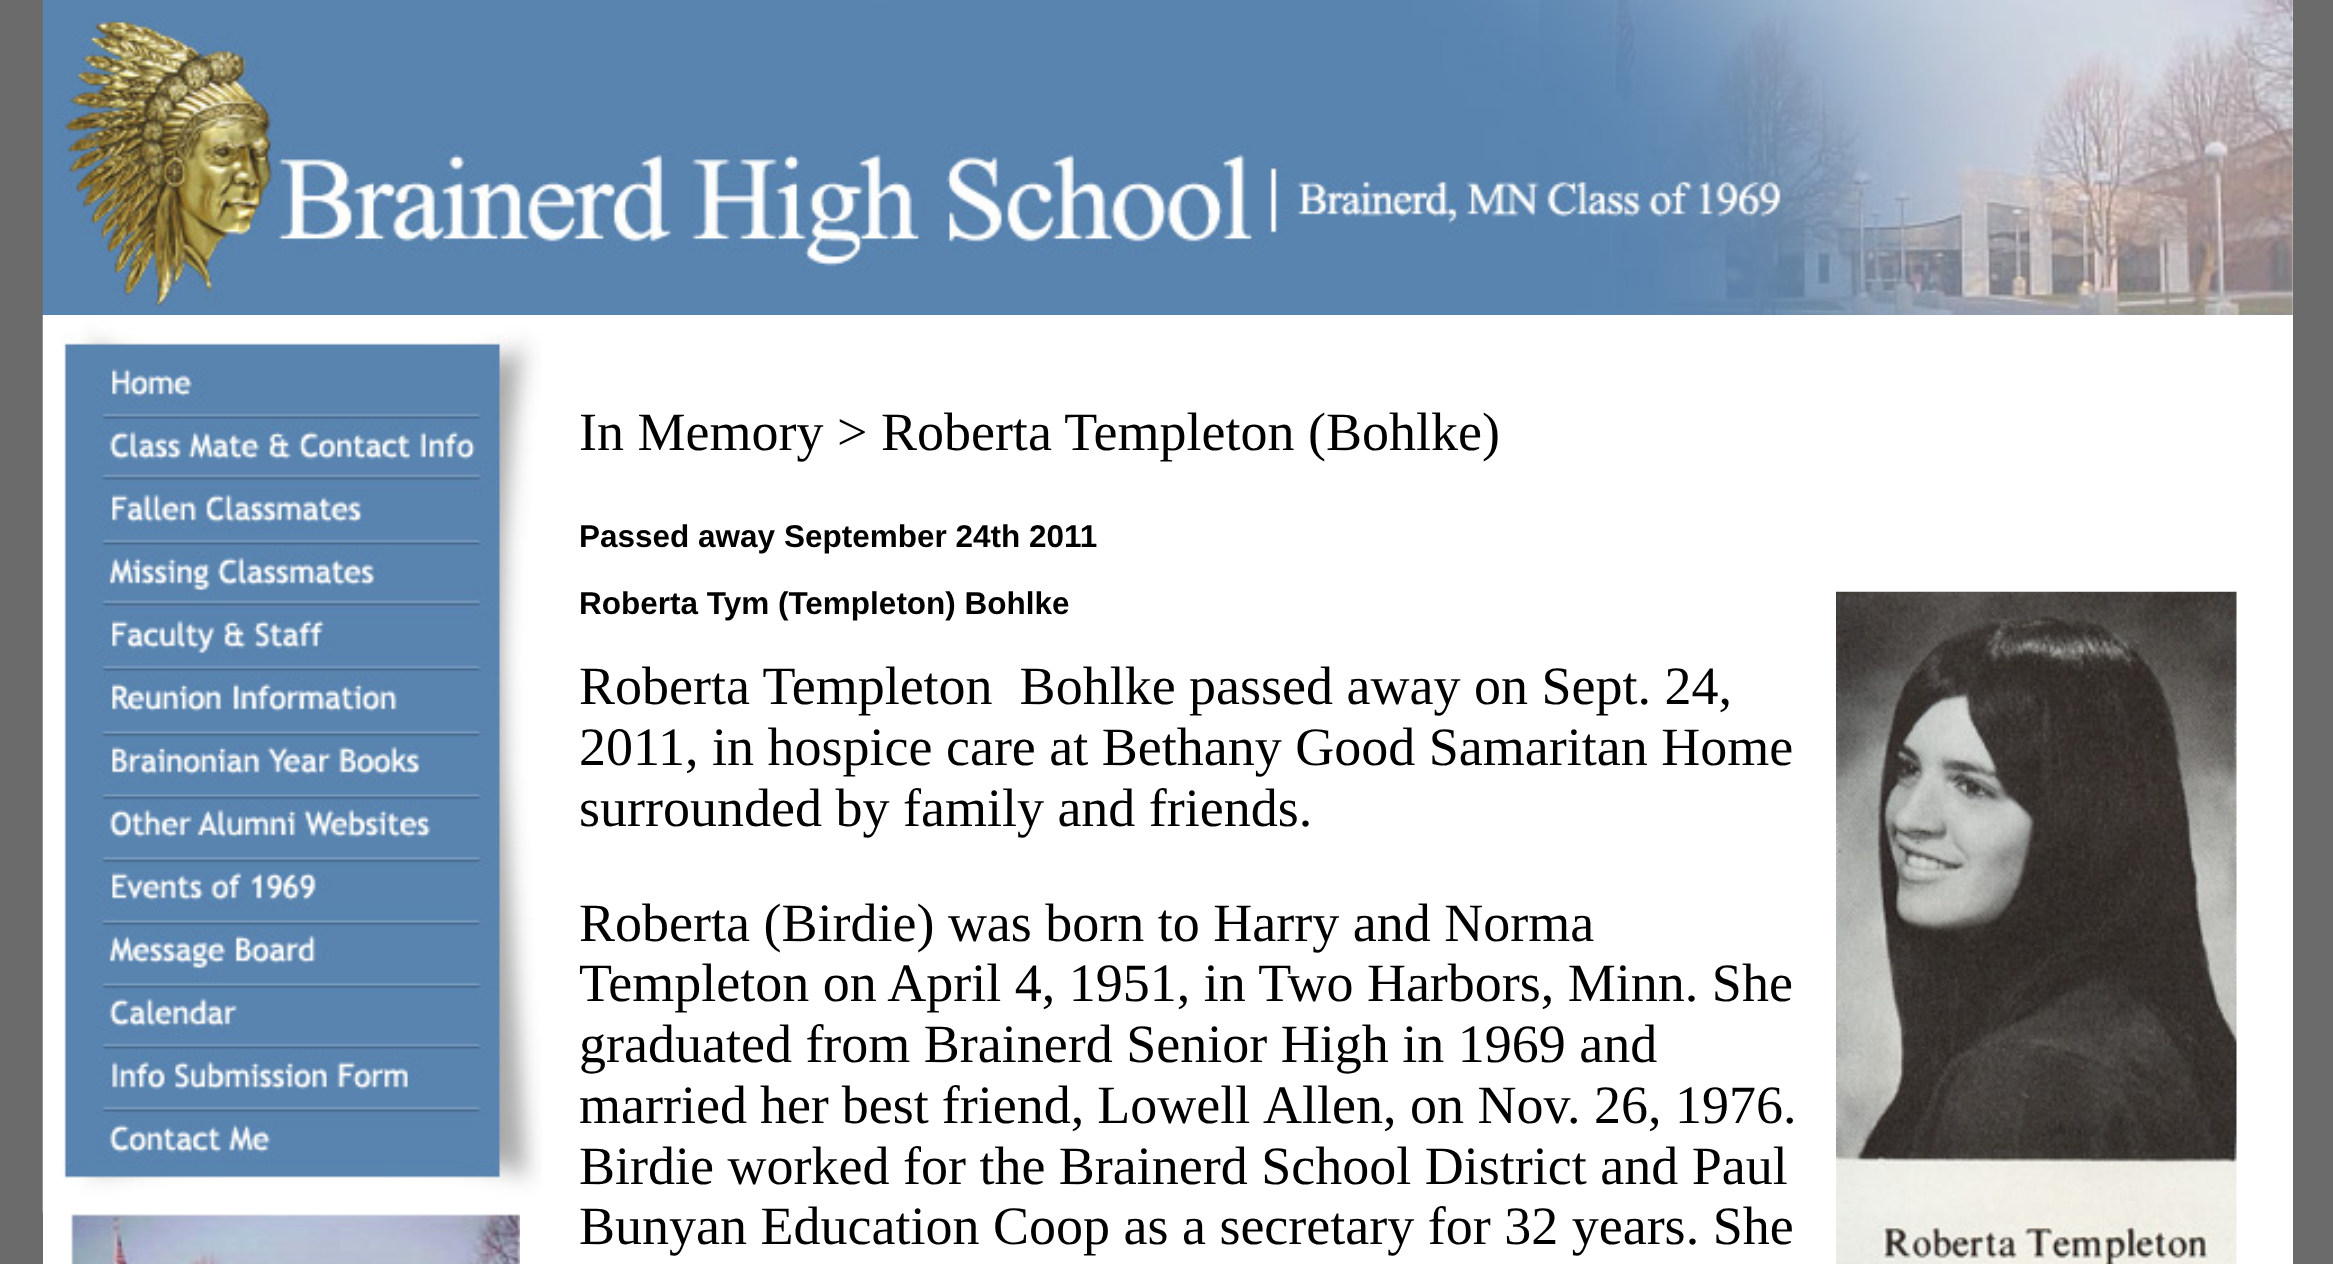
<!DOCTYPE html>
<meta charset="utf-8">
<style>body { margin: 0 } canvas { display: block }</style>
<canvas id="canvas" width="2333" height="1264"></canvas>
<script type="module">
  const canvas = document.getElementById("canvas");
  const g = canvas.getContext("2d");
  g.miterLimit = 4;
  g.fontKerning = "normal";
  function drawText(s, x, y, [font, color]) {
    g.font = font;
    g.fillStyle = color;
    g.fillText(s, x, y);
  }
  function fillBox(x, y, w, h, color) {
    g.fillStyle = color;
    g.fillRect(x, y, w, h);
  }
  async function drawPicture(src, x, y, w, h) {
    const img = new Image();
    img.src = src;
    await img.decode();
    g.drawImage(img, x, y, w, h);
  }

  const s1 = ["54px Liberation Serif", "#000000"];
  const s2 = ["bold 31.5px Liberation Sans", "#000000"];

  fillBox(0, 0, 2333, 1264, "#6B6B6B");
  fillBox(43, 0, 2250, 1264, "#FFFFFF");
  await drawPicture("pic1.png", 42, 0, 2251, 315);
  await drawPicture("pic2.png", 42, 315, 500, 898);
  await drawPicture("pic3.png", 69, 1212, 451, 52);
  drawText("In Memory > Roberta Templeton (Bohlke)", 579, 450, s1);
  drawText("Passed away September 24th 2011", 579, 547, s2);
  drawText("Roberta Tym (Templeton) Bohlke", 579, 614, s2);
  drawText("Roberta Templeton  Bohlke passed away on Sept. 24,", 579, 704, s1);
  drawText("2011, in hospice care at Bethany Good Samaritan Home", 579, 765, s1);
  drawText("surrounded by family and friends.", 579, 826, s1);
  await drawPicture("pic4.png", 1836, 591, 401, 673);
  drawText("Roberta (Birdie) was born to Harry and Norma", 579, 941, s1);
  drawText("Templeton on April 4, 1951, in Two Harbors, Minn. She", 579, 1001, s1);
  drawText("graduated from Brainerd Senior High in 1969 and", 579, 1062, s1);
  g.wordSpacing = "-0.5px";
  drawText("married her best friend, Lowell", 579, 1123, s1);
  g.wordSpacing = "0px";
  drawText("Allen, on Nov. 26, 1976.", 1263, 1123, s1);
  drawText("Birdie worked for the Brainerd School District and Paul", 579, 1184, s1);
  drawText("Bunyan Education Coop as a secretary for 32 years. She", 579, 1244, s1);
</script>
